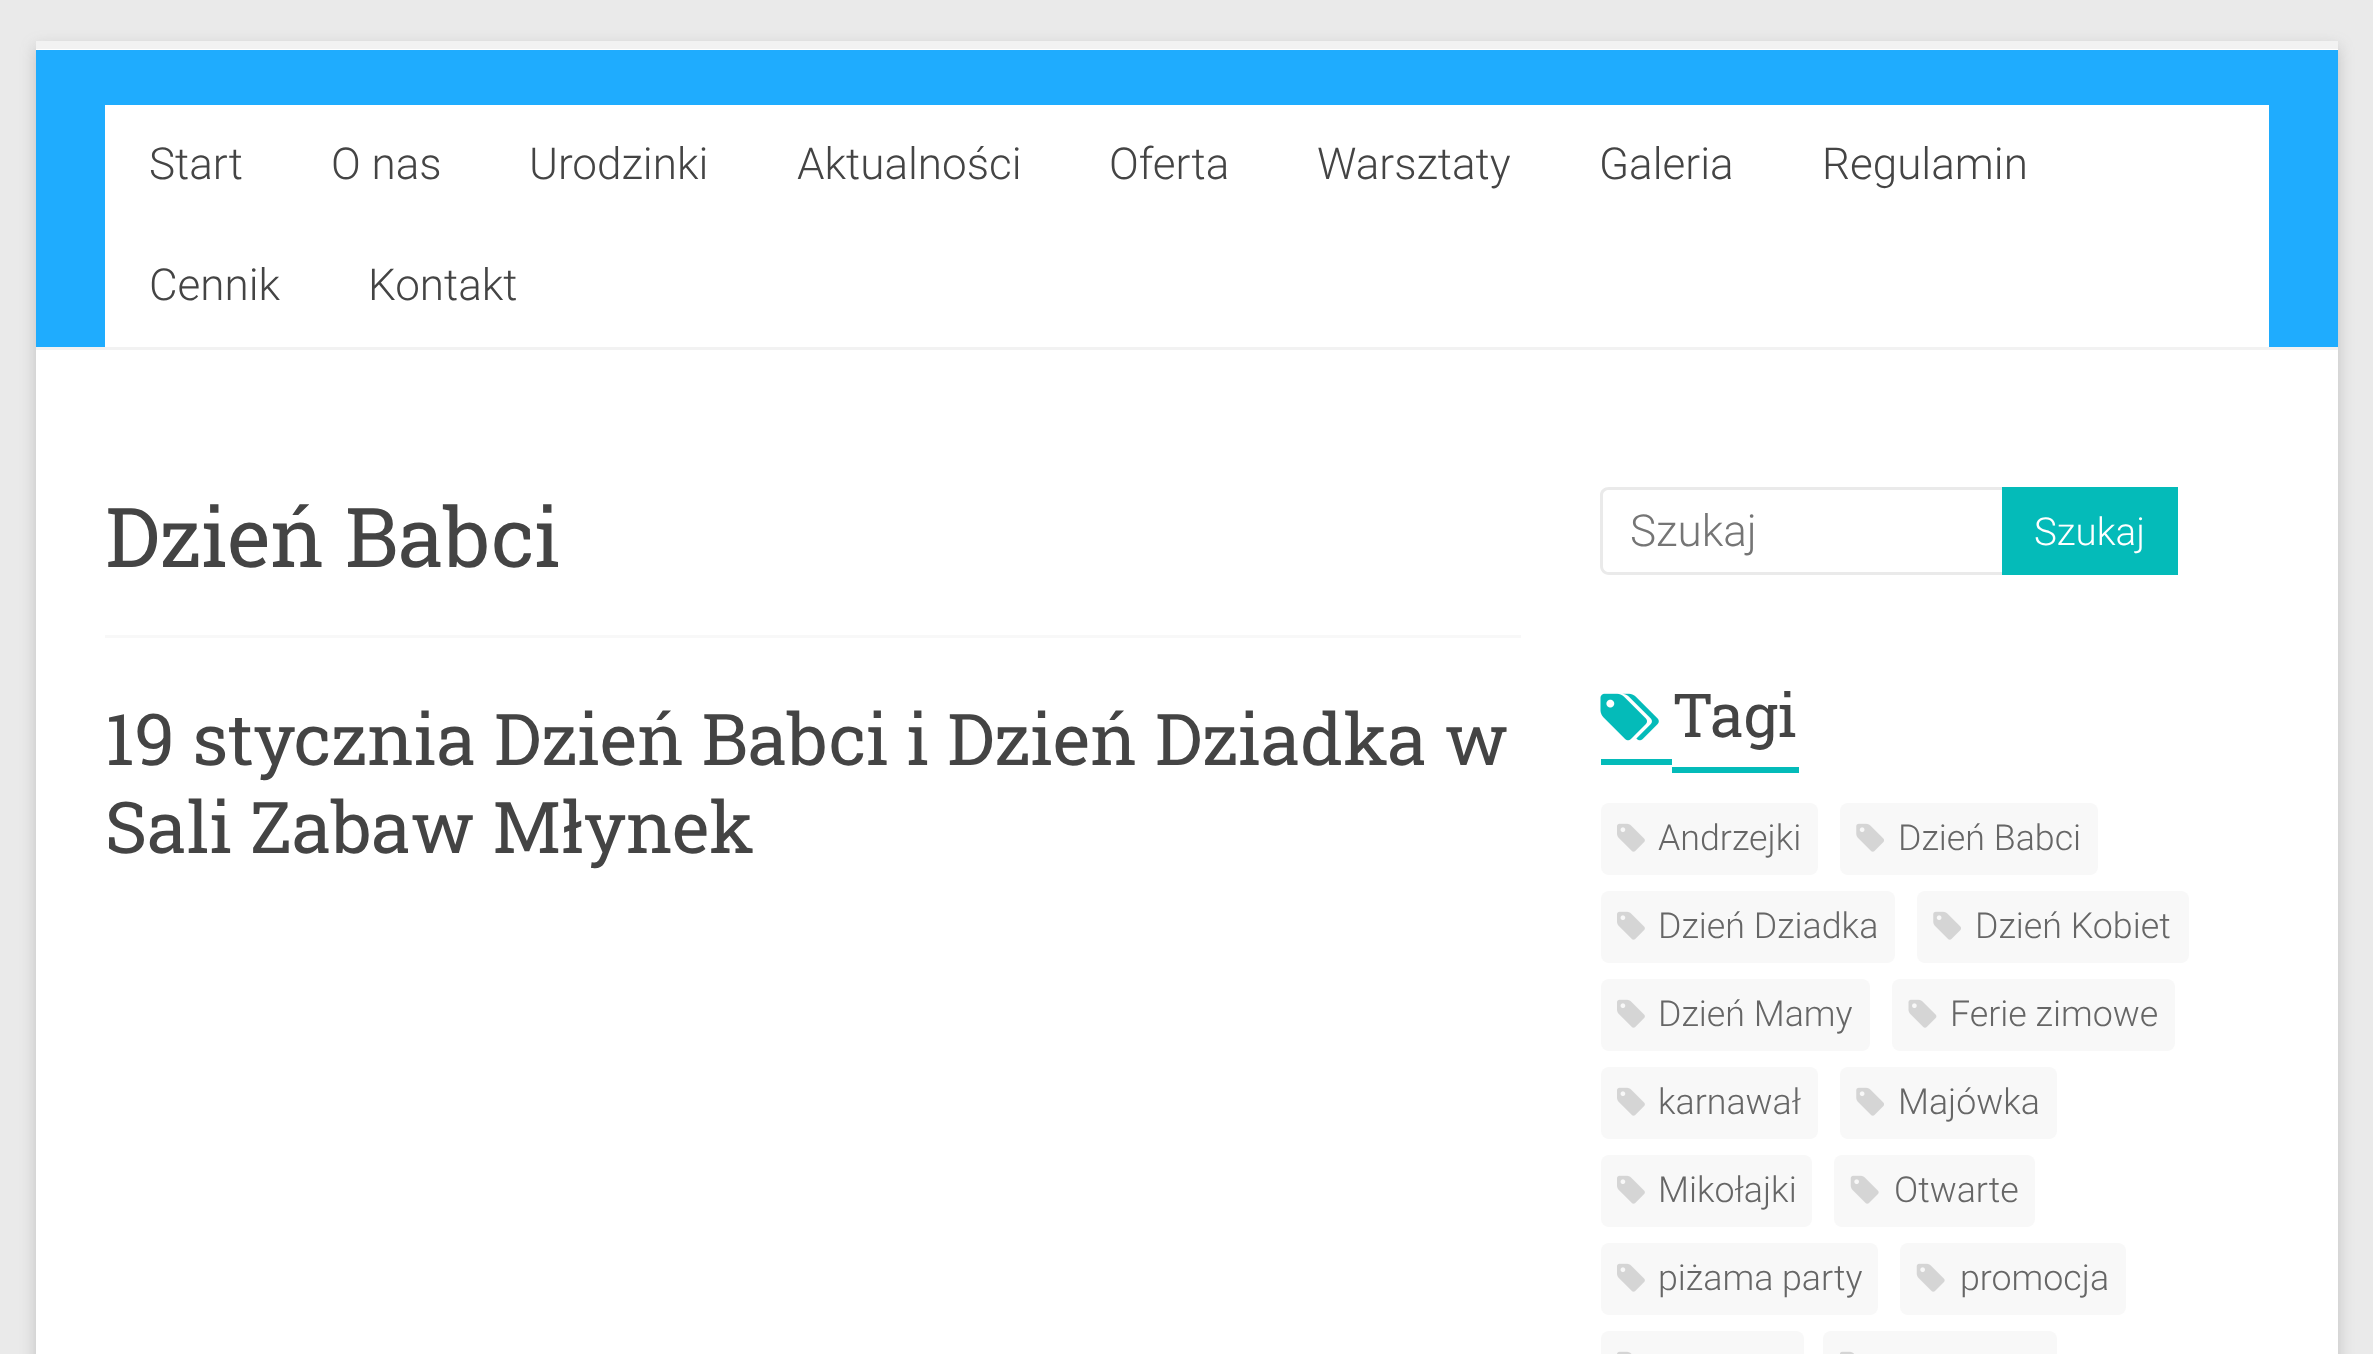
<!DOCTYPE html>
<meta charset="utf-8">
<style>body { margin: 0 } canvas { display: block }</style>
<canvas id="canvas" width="2373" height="1354"></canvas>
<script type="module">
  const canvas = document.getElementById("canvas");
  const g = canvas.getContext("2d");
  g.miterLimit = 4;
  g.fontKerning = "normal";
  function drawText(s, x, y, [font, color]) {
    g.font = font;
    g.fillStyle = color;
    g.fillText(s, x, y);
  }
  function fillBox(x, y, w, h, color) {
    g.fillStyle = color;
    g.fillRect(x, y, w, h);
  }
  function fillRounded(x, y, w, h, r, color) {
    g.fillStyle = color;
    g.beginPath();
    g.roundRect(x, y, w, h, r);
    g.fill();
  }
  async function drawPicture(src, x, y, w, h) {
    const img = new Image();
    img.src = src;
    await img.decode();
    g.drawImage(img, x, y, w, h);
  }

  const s1 = ["300 44px Roboto", "#444444"];
  const s2 = ["82.5px Roboto Slab", "#444444"];
  const s3 = ["71.5px Roboto Slab", "#444444"];
  const s4 = ["300 44px Roboto", "#757575"];
  const s5 = ["300 38.5px Roboto", "#FFFFFF"];
  const s6 = ["60.5px Roboto Slab", "#444444"];
  const s7 = ["300 35.75px Roboto", "#666666"];

  fillBox(0, 0, 2373, 1354, "#EAEAEA");
  g.fillStyle = "rgba(100, 100, 100, 0.3)";
  g.filter = "blur(8px)";
  g.beginPath();
  g.rect(36, 47, 2302, 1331);
  g.fill();
  g.filter = "none";
  fillBox(36, 49, 2302, 1305, "#FFFFFF");
  fillBox(36, 41, 2302, 8, "#F2F2F2");
  fillBox(36, 50, 2302, 297, "#1FACFE");
  fillBox(36, 347, 2302, 3, "#F2F2F2");
  fillBox(105, 105, 2164, 242, "#FFFFFF");
  drawText("Start", 149, 179, s1);
  drawText("O nas", 331, 179, s1);
  drawText("Urodzinki", 529, 179, s1);
  drawText("Aktualności", 797, 179, s1);
  drawText("Oferta", 1109, 179, s1);
  drawText("Warsztaty", 1317, 179, s1);
  drawText("Galeria", 1599, 179, s1);
  drawText("Regulamin", 1822, 179, s1);
  drawText("Cennik", 149, 300, s1);
  drawText("Kontakt", 368, 300, s1);
  fillBox(105, 635, 1416, 3, "#F8F8F8");
  drawText("Dzień Babci", 105, 567, s2);
  drawText("19 stycznia Dzień Babci i Dzień Dziadka w", 105, 765, s3);
  drawText("Sali Zabaw Młynek", 105, 853, s3);
  g.fillStyle = "#EAEAEA";
  g.beginPath();
  g.moveTo(1609, 487);
  g.lineTo(2002, 487);
  g.lineTo(2002, 575);
  g.lineTo(1609, 575);
  g.bezierCurveTo(1604, 575, 1600, 571, 1600, 566);
  g.lineTo(1600, 495);
  g.bezierCurveTo(1600, 490, 1604, 487, 1609, 487);
  g.closePath();
  g.moveTo(1609, 490);
  g.lineTo(2002, 490);
  g.lineTo(2002, 572);
  g.lineTo(1609, 572);
  g.bezierCurveTo(1606, 572, 1603, 570, 1603, 566);
  g.lineTo(1603, 495);
  g.bezierCurveTo(1603, 492, 1606, 490, 1609, 490);
  g.closePath();
  g.fill("evenodd");
  drawText("Szukaj", 1630, 546, s4);
  fillBox(2002, 487, 176, 88, "#04BBB9");
  drawText("Szukaj", 2034, 545, s5);
  await drawPicture("pic1.png", 1600, 693, 59, 48);
  drawText("Tagi", 1672, 737, s6);
  fillBox(1601, 759, 71, 6, "#04BBB9");
  fillBox(1672, 767, 127, 6, "#04BBB9");
  fillRounded(1601, 803, 217, 72, 8, "#F8F8F8");
  await drawPicture("pic2.png", 1617, 823, 28, 29);
  drawText("Andrzejki", 1658, 850, s7);
  fillRounded(1840, 803, 258, 72, 8, "#F8F8F8");
  await drawPicture("pic3.png", 1856, 823, 28, 29);
  drawText("Dzień Babci", 1898, 850, s7);
  fillRounded(1601, 891, 294, 72, 8, "#F8F8F8");
  await drawPicture("pic2.png", 1617, 911, 28, 29);
  drawText("Dzień Dziadka", 1658, 938, s7);
  fillRounded(1917, 891, 272, 72, 8, "#F8F8F8");
  await drawPicture("pic3.png", 1933, 911, 28, 29);
  drawText("Dzień Kobiet", 1975, 938, s7);
  fillRounded(1601, 979, 269, 72, 8, "#F8F8F8");
  await drawPicture("pic2.png", 1617, 999, 28, 29);
  drawText("Dzień Mamy", 1658, 1026, s7);
  fillRounded(1892, 979, 283, 72, 8, "#F8F8F8");
  await drawPicture("pic4.png", 1908, 999, 29, 29);
  drawText("Ferie zimowe", 1950, 1026, s7);
  fillRounded(1601, 1067, 217, 72, 8, "#F8F8F8");
  await drawPicture("pic2.png", 1617, 1087, 28, 29);
  drawText("karnawał", 1658, 1114, s7);
  fillRounded(1840, 1067, 217, 72, 8, "#F8F8F8");
  await drawPicture("pic3.png", 1856, 1087, 28, 29);
  drawText("Majówka", 1898, 1114, s7);
  fillRounded(1601, 1155, 211, 72, 8, "#F8F8F8");
  await drawPicture("pic2.png", 1617, 1175, 28, 29);
  drawText("Mikołajki", 1658, 1202, s7);
  fillRounded(1834, 1155, 201, 72, 8, "#F8F8F8");
  await drawPicture("pic5.png", 1850, 1175, 29, 29);
  drawText("Otwarte", 1894, 1202, s7);
  fillRounded(1601, 1243, 277, 72, 8, "#F8F8F8");
  await drawPicture("pic2.png", 1617, 1263, 28, 29);
  drawText("piżama party", 1658, 1290, s7);
  fillRounded(1900, 1243, 226, 72, 8, "#F8F8F8");
  await drawPicture("pic5.png", 1916, 1263, 29, 29);
  drawText("promocja", 1960, 1290, s7);
  fillRounded(1601, 1331, 203, 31, 8, "#F8F8F8");
  await drawPicture("pic6.png", 1617, 1351, 15, 3);
  fillRounded(1823, 1331, 234, 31, 8, "#F8F8F8");
  await drawPicture("pic7.png", 1840, 1351, 14, 3);
</script>
